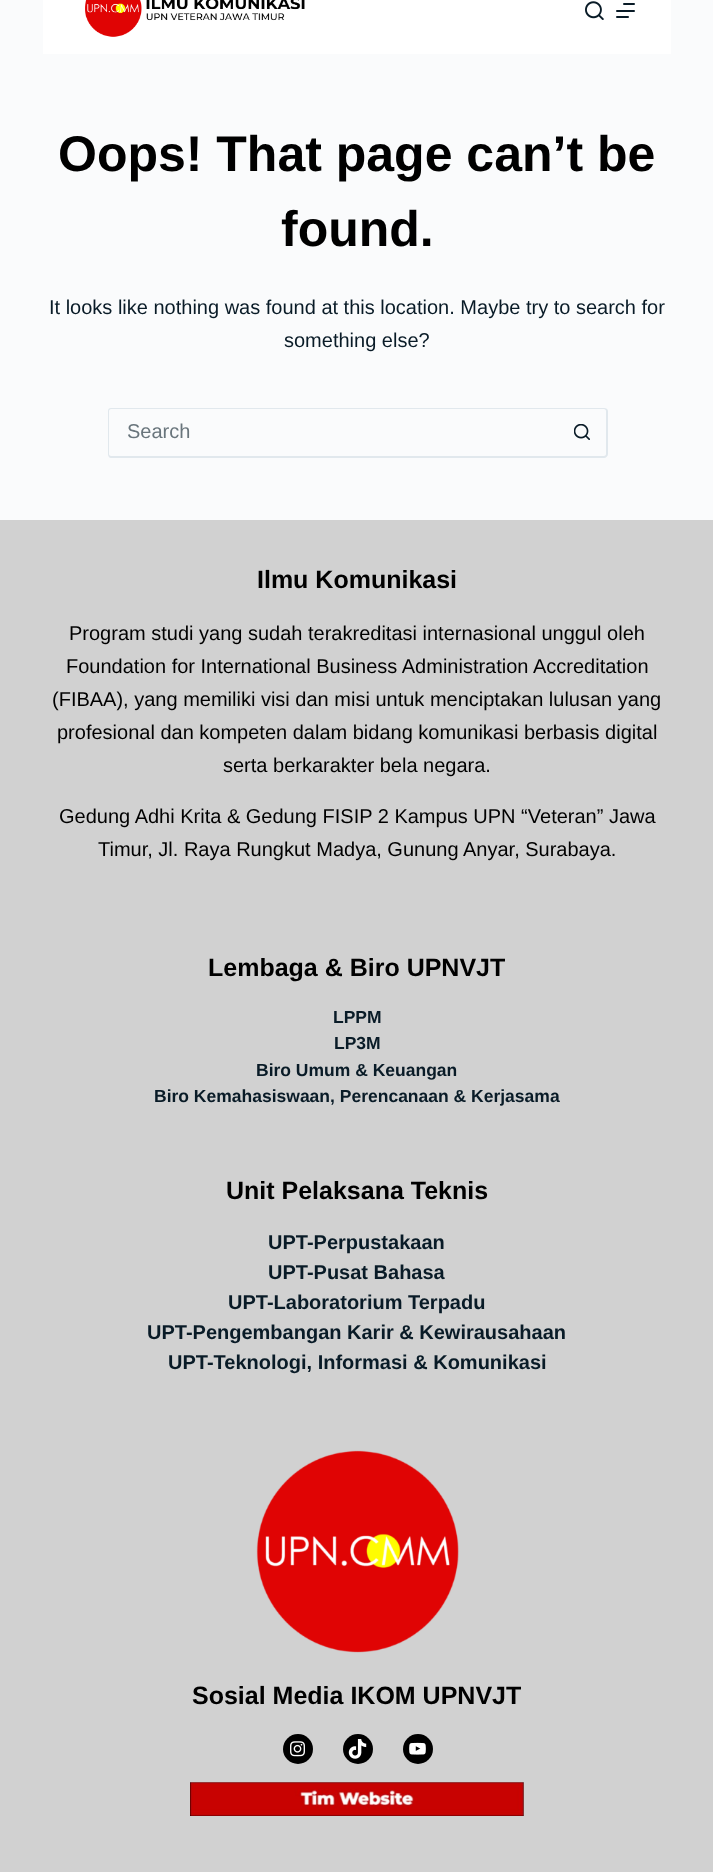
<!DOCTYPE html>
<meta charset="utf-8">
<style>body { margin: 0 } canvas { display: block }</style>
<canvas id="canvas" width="713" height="1872"></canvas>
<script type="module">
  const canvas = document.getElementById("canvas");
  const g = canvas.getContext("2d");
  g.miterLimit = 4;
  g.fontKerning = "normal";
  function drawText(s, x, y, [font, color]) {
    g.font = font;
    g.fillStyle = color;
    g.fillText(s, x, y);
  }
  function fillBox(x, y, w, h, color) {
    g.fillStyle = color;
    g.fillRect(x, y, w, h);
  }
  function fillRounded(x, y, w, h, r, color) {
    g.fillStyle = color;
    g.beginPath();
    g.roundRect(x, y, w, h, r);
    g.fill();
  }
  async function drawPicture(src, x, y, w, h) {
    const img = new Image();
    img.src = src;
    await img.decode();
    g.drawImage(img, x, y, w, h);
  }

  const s1 = ["bold 50px Liberation Sans", "#000000"];
  const s2 = ["20px Liberation Sans", "#091B27"];
  const s3 = ["20px Liberation Sans", "#69757C"];
  const s4 = ["bold 25px Liberation Sans", "#000000"];
  const s5 = ["20px Liberation Sans", "#000000"];
  const s6 = ["bold 17.5px Liberation Sans", "#091B27"];
  const s7 = ["bold 20px Liberation Sans", "#091B27"];

  fillBox(0, 0, 713, 1872, "#FAFBFC");
  fillBox(43, 0, 628, 54, "#FFFFFF");
  await drawPicture("pic1.png", 85, 0, 220, 37);
  await drawPicture("pic2.png", 585, 1, 19, 19);
  fillRounded(623, 3, 12, 2, 1, "#091B27");
  fillRounded(616, 10, 19, 2, 1, "#091B27");
  fillRounded(616, 16, 13, 2, 1, "#091B27");
  drawText("Oops! That page can’t be", 58, 171, s1);
  drawText("found.", 281, 246, s1);
  drawText("It looks like nothing was found at this location. Maybe try to search for", 49, 314, s2);
  drawText("something else?", 284, 347, s2);
  g.fillStyle = "#E1E8ED";
  g.beginPath();
  g.moveTo(111, 408);
  g.lineTo(558, 408);
  g.lineTo(558, 458);
  g.lineTo(111, 458);
  g.bezierCurveTo(109, 458, 108, 456, 108, 454);
  g.lineTo(108, 411);
  g.bezierCurveTo(108, 409, 109, 408, 111, 408);
  g.closePath();
  g.moveTo(111, 409);
  g.lineTo(558, 409);
  g.lineTo(558, 456);
  g.lineTo(111, 456);
  g.bezierCurveTo(110, 456, 109, 455, 109, 454);
  g.lineTo(109, 411);
  g.bezierCurveTo(109, 410, 110, 409, 111, 409);
  g.closePath();
  g.fill("evenodd");
  drawText("Search", 127, 438, s3);
  g.fillStyle = "#E1E8ED";
  g.beginPath();
  g.moveTo(558, 408);
  g.lineTo(604, 408);
  g.bezierCurveTo(606, 408, 608, 409, 608, 411);
  g.lineTo(608, 454);
  g.bezierCurveTo(608, 456, 606, 458, 604, 458);
  g.lineTo(558, 458);
  g.closePath();
  g.moveTo(558, 409);
  g.lineTo(604, 409);
  g.bezierCurveTo(605, 409, 606, 410, 606, 411);
  g.lineTo(606, 454);
  g.bezierCurveTo(606, 455, 605, 456, 604, 456);
  g.lineTo(558, 456);
  g.closePath();
  g.fill("evenodd");
  await drawPicture("pic3.png", 574, 424, 16, 16);
  fillBox(0, 520, 713, 1352, "#D1D1D1");
  drawText("Ilmu Komunikasi", 257, 588, s4);
  drawText("Program studi yang sudah terakreditasi internasional unggul oleh", 69, 640, s5);
  drawText("Foundation for International Business Administration Accreditation", 66, 673, s5);
  drawText("(FIBAA), yang memiliki visi dan misi untuk menciptakan lulusan yang", 52, 706, s5);
  drawText("profesional dan kompeten dalam bidang komunikasi berbasis digital", 57, 739, s5);
  drawText("serta berkarakter bela negara.", 223, 772, s5);
  drawText("Gedung Adhi Krita & Gedung FISIP 2 Kampus UPN “Veteran” Jawa", 59, 823, s5);
  drawText("Timur, Jl. Raya Rungkut Madya, Gunung Anyar, Surabaya.", 98, 856, s5);
  drawText("Lembaga & Biro UPNVJT", 208, 976, s4);
  drawText("LPPM", 333, 1023, s6);
  drawText("LP3M", 334, 1049, s6);
  drawText("Biro Umum & Keuangan", 256, 1076, s6);
  drawText("Biro Kemahasiswaan, Perencanaan & Kerjasama", 154, 1102, s6);
  drawText("Unit Pelaksana Teknis", 226, 1199, s4);
  drawText("UPT-Perpustakaan", 268, 1249, s7);
  drawText("UPT-Pusat Bahasa", 268, 1279, s7);
  drawText("UPT-Laboratorium Terpadu", 228, 1309, s7);
  drawText("UPT-Pengembangan Karir & Kewirausahaan", 147, 1339, s7);
  drawText("UPT-Teknologi, Informasi & Komunikasi", 168, 1369, s7);
  await drawPicture("pic4.png", 256, 1450, 203, 203);
  drawText("Sosial Media IKOM UPNVJT", 192, 1704, s4);
  g.beginPath();
  g.arc(298, 1749, 15, 0, Math.PI * 2);
  g.fill();
  await drawPicture("pic5.png", 290, 1741, 15, 16);
  g.beginPath();
  g.arc(358, 1749, 15, 0, Math.PI * 2);
  g.fill();
  await drawPicture("pic6.png", 348, 1739, 19, 20);
  g.beginPath();
  g.arc(418, 1749, 15, 0, Math.PI * 2);
  g.fill();
  await drawPicture("pic7.png", 409, 1742, 17, 13);
  await drawPicture("pic8.png", 190, 1782, 334, 34);
</script>
